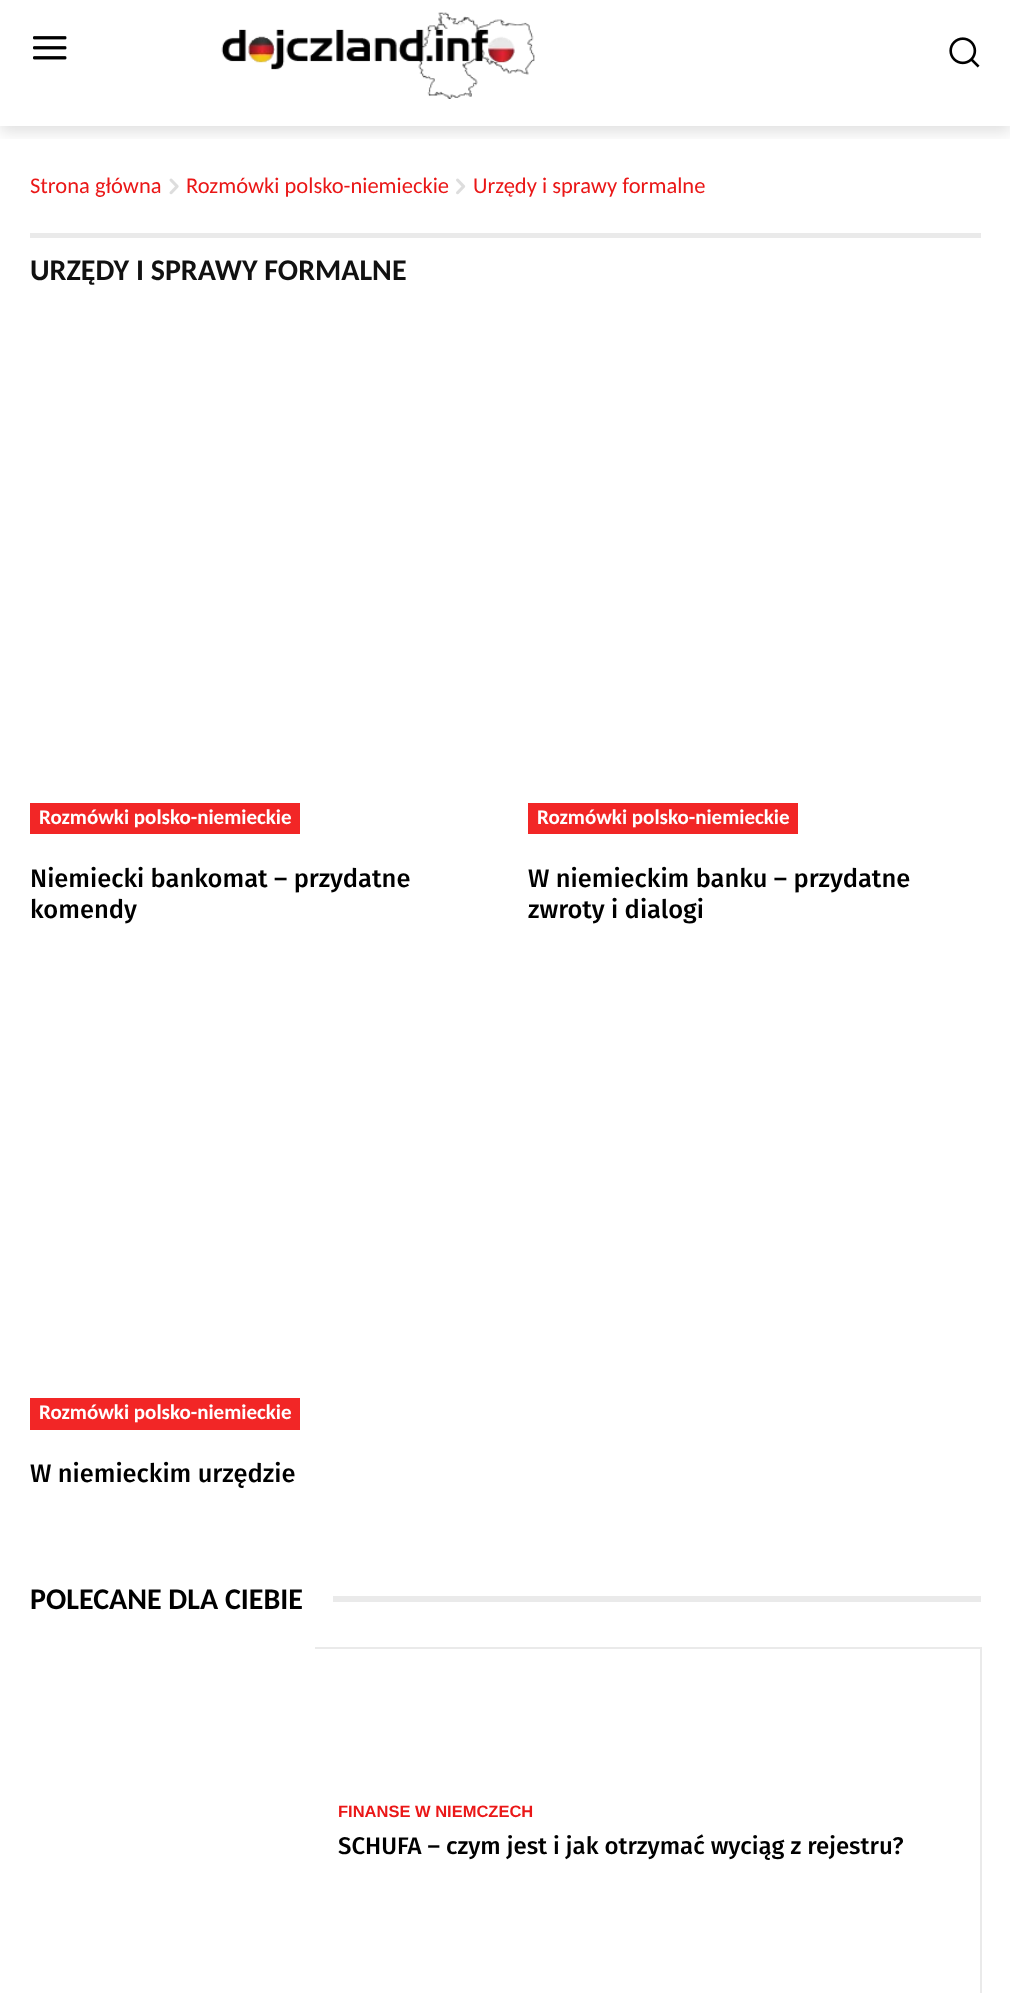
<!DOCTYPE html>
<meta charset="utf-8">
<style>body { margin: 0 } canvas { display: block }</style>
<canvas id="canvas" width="1010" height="1993"></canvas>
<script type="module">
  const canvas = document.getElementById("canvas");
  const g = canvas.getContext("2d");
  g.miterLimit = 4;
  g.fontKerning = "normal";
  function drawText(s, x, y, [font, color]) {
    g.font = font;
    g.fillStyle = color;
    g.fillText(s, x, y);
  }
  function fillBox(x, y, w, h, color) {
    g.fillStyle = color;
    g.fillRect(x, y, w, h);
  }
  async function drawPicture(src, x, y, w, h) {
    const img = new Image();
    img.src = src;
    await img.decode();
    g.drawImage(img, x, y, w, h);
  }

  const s1 = ["22.5px Carlito", "#EA1717"];
  const s2 = ["bold 30px Carlito", "#111111"];
  const s3 = ["bold 21px Carlito", "#FFFFFF"];
  const s4 = ["500 25.5px Fira Sans", "#000000"];
  const s5 = ["bold 30px Carlito", "#000000"];
  const s6 = ["bold 16.5px Liberation Sans", "#EA1717"];
  const s7 = ["500 24px Fira Sans", "#000000"];

  fillBox(0, 0, 1010, 1993, "#FFFFFF");
  await drawPicture("pic1.png", 33, 36, 34, 24);
  await drawPicture("pic2.png", 221, 12, 314, 87);
  await drawPicture("pic3.png", 949, 37, 31, 31);
  g.save();
  g.beginPath();
  g.rect(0, 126, 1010, 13);
  g.clip();
  g.fillStyle = "rgba(0, 0, 0, 0.12)";
  g.filter = "blur(7.5px)";
  g.beginPath();
  g.rect(0, 6, 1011, 126);
  g.fill();
  g.filter = "none";
  g.restore();
  drawText("Strona główna", 30, 193, s1);
  await drawPicture("pic4.png", 169, 178, 10, 17);
  drawText("Rozmówki polsko-niemieckie", 186, 193, s1);
  await drawPicture("pic5.png", 456, 178, 10, 17);
  drawText("Urzędy i sprawy formalne", 473, 193, s1);
  fillBox(30, 233, 951, 5, "#EAEAEA");
  drawText("URZĘDY I SPRAWY FORMALNE", 30, 280, s2);
  fillBox(30, 803, 270, 31, "#F22626");
  drawText("Rozmówki polsko-niemieckie", 39, 824, s3);
  drawText("Niemiecki bankomat – przydatne", 30, 887, s4);
  drawText("komendy", 30, 918, s4);
  fillBox(528, 803, 270, 31, "#F22626");
  drawText("Rozmówki polsko-niemieckie", 537, 824, s3);
  drawText("W niemieckim banku – przydatne", 528, 887, s4);
  drawText("zwroty i dialogi", 528, 918, s4);
  fillBox(30, 1398, 270, 32, "#F22626");
  drawText("Rozmówki polsko-niemieckie", 39, 1419, s3);
  drawText("W niemieckim urzędzie", 30, 1482, s4);
  drawText("POLECANE DLA CIEBIE", 30, 1609, s5);
  fillBox(333, 1596, 648, 6, "#EAEAEA");
  fillBox(315, 1647, 666, 2, "#EAEAEA");
  fillBox(980, 1647, 2, 346, "#EAEAEA");
  drawText("FINANSE W NIEMCZECH", 338, 1817, s6);
  drawText("SCHUFA – czym jest i jak otrzymać wyciąg z rejestru?", 338, 1854, s7);
</script>
